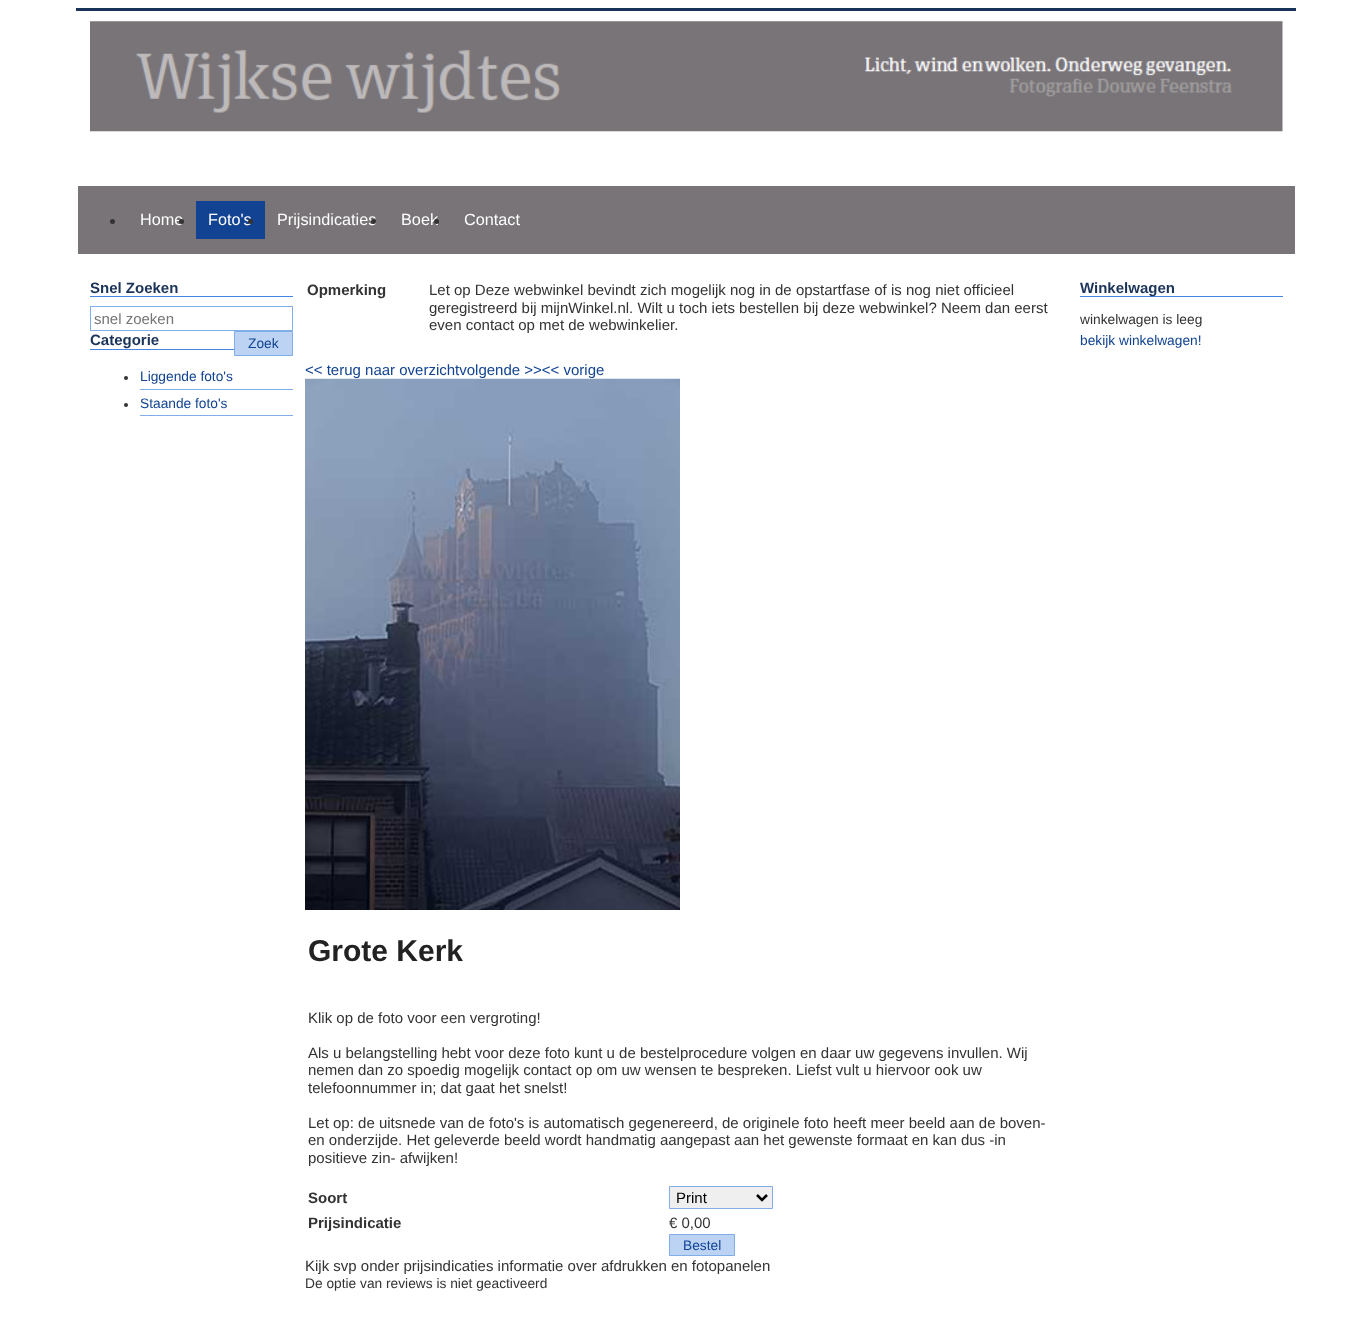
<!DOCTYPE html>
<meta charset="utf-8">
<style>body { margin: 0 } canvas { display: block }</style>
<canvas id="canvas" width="1372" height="1321"></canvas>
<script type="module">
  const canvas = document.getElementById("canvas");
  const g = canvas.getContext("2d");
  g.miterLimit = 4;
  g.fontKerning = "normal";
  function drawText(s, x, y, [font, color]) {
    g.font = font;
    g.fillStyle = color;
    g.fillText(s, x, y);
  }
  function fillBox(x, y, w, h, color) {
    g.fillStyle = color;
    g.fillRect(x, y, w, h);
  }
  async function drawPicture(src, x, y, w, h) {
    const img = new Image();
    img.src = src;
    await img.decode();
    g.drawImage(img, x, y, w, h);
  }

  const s1 = ["16.25px Liberation Sans", "#FFFFFF"];
  const s2 = ["bold 15px Liberation Sans", "#193359"];
  const s3 = ["15px Liberation Sans", "#757575"];
  const s4 = ["13.75px Liberation Sans", "#114392"];
  const s5 = ["bold 15px Liberation Sans", "#333333"];
  const s6 = ["15px Liberation Sans", "#333333"];
  const s7 = ["15px Liberation Sans", "#114392"];
  const s8 = ["bold 30px Liberation Sans", "#222222"];
  const s9 = ["15px Liberation Sans", "#000000"];
  const s10 = ["13.75px Liberation Sans", "#333333"];

  fillBox(0, 0, 1372, 1321, "#FFFFFF");
  fillBox(76, 8, 1220, 3, "#193359");
  await drawPicture("pic1.png", 90, 21, 1193, 111);
  fillBox(78, 186, 1217, 68, "#787477");
  g.fillStyle = "#333333";
  g.beginPath();
  g.arc(112.5, 221.5, 2.5, 0, Math.PI * 2);
  g.fill();
  drawText("Home", 140, 225, s1);
  g.fillStyle = "#333333";
  g.beginPath();
  g.arc(181.5, 221.5, 2.5, 0, Math.PI * 2);
  g.fill();
  fillBox(196, 201, 69, 38, "#114392");
  drawText("Foto's", 208, 225, s1);
  g.fillStyle = "#333333";
  g.beginPath();
  g.arc(250.5, 221.5, 2.5, 0, Math.PI * 2);
  g.fill();
  drawText("Prijsindicaties", 277, 225, s1);
  g.fillStyle = "#333333";
  g.beginPath();
  g.arc(373.5, 221.5, 2.5, 0, Math.PI * 2);
  g.fill();
  drawText("Boek", 401, 225, s1);
  g.fillStyle = "#333333";
  g.beginPath();
  g.arc(436.5, 221.5, 2.5, 0, Math.PI * 2);
  g.fill();
  drawText("Contact", 464, 225, s1);
  fillBox(90, 296, 203, 1, "#4784DD");
  drawText("Snel Zoeken", 90, 293, s2);
  g.strokeStyle = "#81ADE9";
  g.strokeRect(90.5, 306.5, 202, 24);
  drawText("snel zoeken", 94, 324, s3);
  g.fillStyle = "#BCD3F3";
  g.beginPath();
  g.rect(234.5, 331.5, 58, 24);
  g.fill();
  g.stroke();
  drawText("Zoek", 248, 348, s4);
  fillBox(90, 349, 144, 1, "#4784DD");
  drawText("Categorie", 90, 345, s2);
  fillBox(140, 389, 153, 1, "#81ADE9");
  g.fillStyle = "#333333";
  g.beginPath();
  g.arc(126, 378, 2, 0, Math.PI * 2);
  g.fill();
  drawText("Liggende foto's", 140, 381, s4);
  fillBox(140, 415, 153, 1, "#81ADE9");
  g.fillStyle = "#333333";
  g.beginPath();
  g.arc(126, 405, 2, 0, Math.PI * 2);
  g.fill();
  drawText("Staande foto's", 140, 408, s4);
  drawText("Opmerking", 307, 295, s5);
  drawText("Let op Deze webwinkel bevindt zich mogelijk nog in de opstartfase of is nog niet officieel", 429, 295, s6);
  drawText("geregistreerd bij mijnWinkel.nl. Wilt u toch iets bestellen bij deze webwinkel? Neem dan eerst", 429, 313, s6);
  drawText("even contact op met de webwinkelier.", 429, 330, s6);
  drawText("<< terug naar overzichtvolgende >><< vorige", 305, 375, s7);
  await drawPicture("pic2.png", 305, 378, 375, 532);
  drawText("Grote Kerk", 308, 961, s8);
  drawText("Klik op de foto voor een vergroting!", 308, 1023, s6);
  drawText("Als u belangstelling hebt voor deze foto kunt u de bestelprocedure volgen en daar uw gegevens invullen. Wij", 308, 1058, s6);
  drawText("nemen dan zo spoedig mogelijk contact op om uw wensen te bespreken. Liefst vult u hiervoor ook uw", 308, 1075, s6);
  drawText("telefoonnummer in; dat gaat het snelst!", 308, 1093, s6);
  drawText("Let op: de uitsnede van de foto's is automatisch gegenereerd, de originele foto heeft meer beeld aan de boven-", 308, 1128, s6);
  drawText("en onderzijde. Het geleverde beeld wordt handmatig aangepast aan het gewenste formaat en kan dus -in", 308, 1145, s6);
  drawText("positieve zin- afwijken!", 308, 1163, s6);
  drawText("Soort", 308, 1203, s5);
  g.fillStyle = "#EFEFEF";
  g.beginPath();
  g.rect(669.5, 1186.5, 103, 22);
  g.fill();
  g.stroke();
  g.beginPath();
  g.moveTo(757, 1195);
  g.lineTo(762, 1200);
  g.lineTo(767, 1195);
  g.strokeStyle = "#000000";
  g.lineWidth = 2.5;
  g.stroke();
  drawText("Print", 676, 1203, s9);
  drawText("Prijsindicatie", 308, 1228, s5);
  drawText("€ 0,00", 669, 1228, s6);
  g.fillStyle = "#BCD3F3";
  g.beginPath();
  g.rect(669.5, 1234.5, 65, 21);
  g.fill();
  g.strokeStyle = "#81ADE9";
  g.lineWidth = 1;
  g.stroke();
  drawText("Bestel", 683, 1250, s4);
  drawText("Kijk svp onder prijsindicaties informatie over afdrukken en fotopanelen", 305, 1271, s6);
  drawText("De optie van reviews is niet geactiveerd", 305, 1288, s10);
  fillBox(1080, 296, 203, 1, "#4784DD");
  drawText("Winkelwagen", 1080, 293, s2);
  drawText("winkelwagen is leeg", 1080, 324, s10);
  drawText("bekijk winkelwagen!", 1080, 345, s4);
</script>
